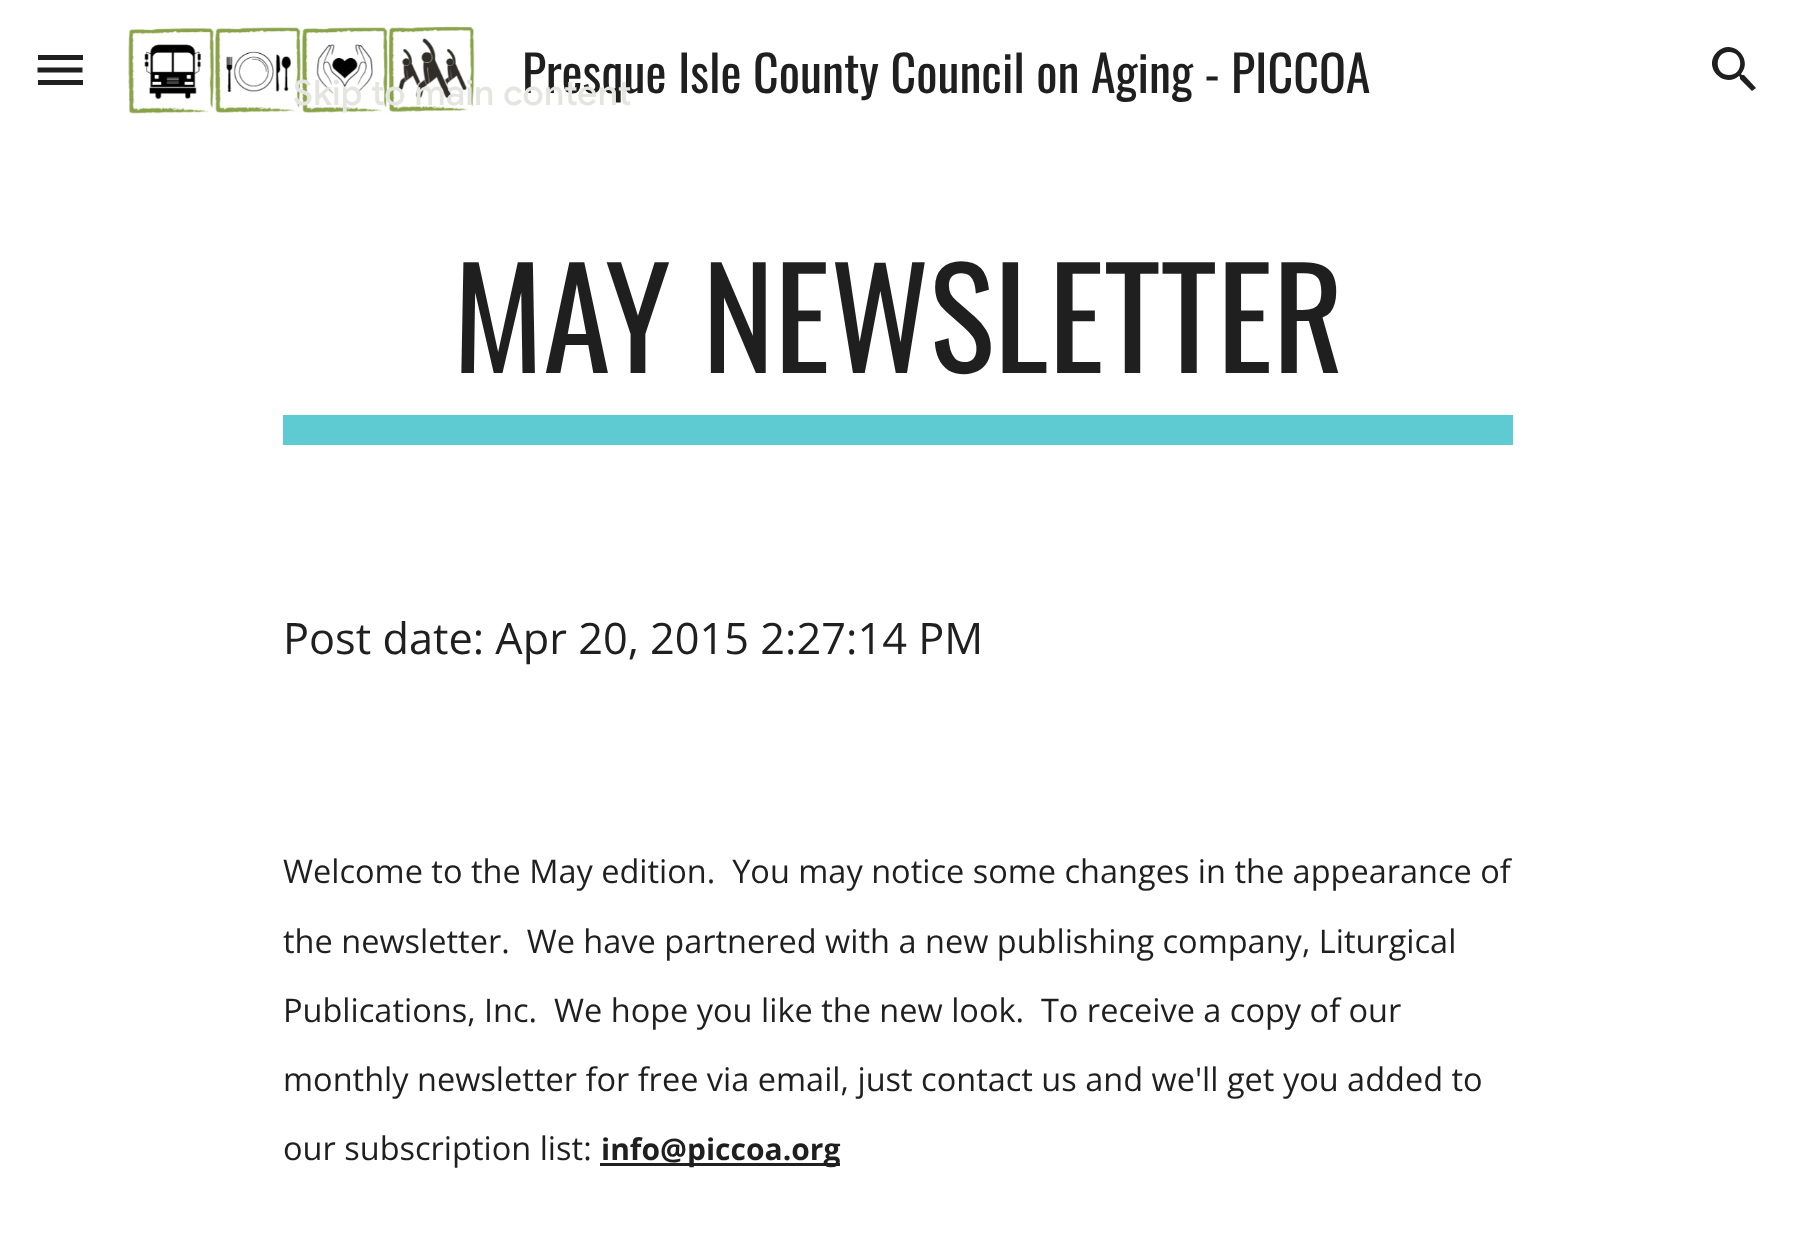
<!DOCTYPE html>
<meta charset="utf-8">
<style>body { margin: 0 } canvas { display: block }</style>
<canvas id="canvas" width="1795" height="1260"></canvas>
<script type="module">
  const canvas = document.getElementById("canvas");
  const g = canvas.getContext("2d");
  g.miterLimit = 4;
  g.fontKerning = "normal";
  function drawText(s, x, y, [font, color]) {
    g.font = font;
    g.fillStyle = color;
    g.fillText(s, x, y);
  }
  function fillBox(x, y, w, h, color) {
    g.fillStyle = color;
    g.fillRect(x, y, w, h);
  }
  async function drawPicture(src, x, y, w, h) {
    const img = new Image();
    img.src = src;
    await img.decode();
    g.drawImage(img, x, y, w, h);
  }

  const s1 = ["50px Oswald", "#1F1F1F"];
  const s2 = ["136.75px Oswald", "#1F1F1F"];
  const s3 = ["43.3px Open Sans", "#1F1F1F"];
  const s4 = ["32.5px Open Sans", "#1F1F1F"];
  const s5 = ["bold 30px Open Sans", "#1F1F1F"];
  const s6 = ["500 35px Google Sans", "#E4E5E0"];

  fillBox(0, 0, 1795, 1260, "#FFFFFF");
  fillBox(38, 55, 45, 5, "#1F1F1F");
  g.beginPath();
  g.moveTo(37.5, 70);
  g.lineTo(82.5, 70);
  g.strokeStyle = "#1F1F1F";
  g.lineWidth = 5;
  g.stroke();
  fillBox(38, 80, 45, 5, "#1F1F1F");
  await drawPicture("pic1.png", 128, 26, 347, 88);
  drawText("Presque Isle County Council on Aging - PICCOA", 522, 93, s1);
  g.beginPath();
  g.moveTo(1744, 75);
  g.lineTo(1742, 75);
  g.lineTo(1741, 74);
  g.bezierCurveTo(1754, 59, 1732, 37, 1717, 52);
  g.bezierCurveTo(1702, 67, 1724, 89, 1739, 76);
  g.lineTo(1740, 77);
  g.lineTo(1740, 79);
  g.lineTo(1752, 91);
  g.lineTo(1756, 88);
  g.closePath();
  g.moveTo(1729, 75);
  g.bezierCurveTo(1714, 75, 1714, 52, 1729, 52);
  g.bezierCurveTo(1744, 52, 1744, 75, 1729, 75);
  g.closePath();
  g.fill();
  drawText("MAY NEWSLETTER", 453, 373, s2);
  fillBox(283, 415, 1230, 30, "#5ECBD2");
  drawText("Post date: Apr 20, 2015 2:27:14 PM", 283, 654, s3);
  drawText("Welcome to the May edition.  You may notice some changes in the appearance of", 283, 883, s4);
  drawText("the newsletter.  We have partnered with a new publishing company, Liturgical", 283, 953, s4);
  drawText("Publications, Inc.  We hope you like the new look.  To receive a copy of our", 283, 1022, s4);
  drawText("monthly newsletter for free via email, just contact us and we'll get you added to", 283, 1091, s4);
  drawText("our subscription list:", 283, 1160, s4);
  fillBox(600, 1163, 240, 3, "#212121");
  drawText("info@piccoa.org", 601, 1160, s5);
  g.letterSpacing = "0.4px";
  drawText("Skip to main content", 293, 105, s6);
</script>
